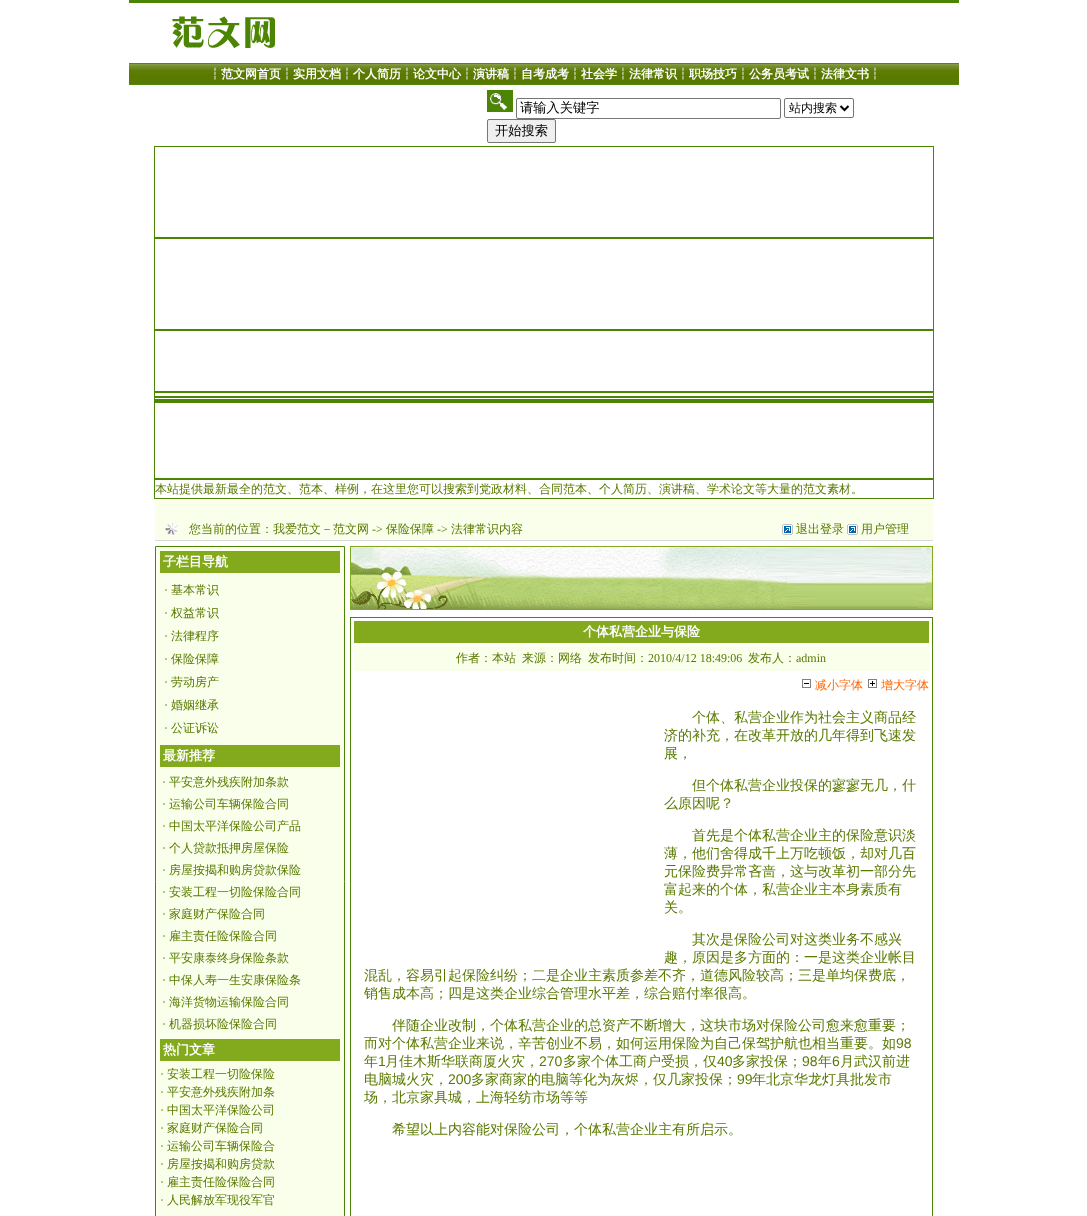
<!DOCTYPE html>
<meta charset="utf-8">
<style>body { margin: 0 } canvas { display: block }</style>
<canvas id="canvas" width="1087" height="1216"></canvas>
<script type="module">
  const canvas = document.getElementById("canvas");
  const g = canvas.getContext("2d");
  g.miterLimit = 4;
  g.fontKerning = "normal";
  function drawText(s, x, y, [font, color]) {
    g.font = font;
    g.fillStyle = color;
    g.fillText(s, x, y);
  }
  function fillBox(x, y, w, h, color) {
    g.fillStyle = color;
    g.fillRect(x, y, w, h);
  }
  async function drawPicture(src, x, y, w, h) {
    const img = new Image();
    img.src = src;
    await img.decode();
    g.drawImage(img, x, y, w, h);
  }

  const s1 = ["bold 12px WenQuanYi Zen Hei", "#FFFFFF"];
  const s2 = ["500 13.25px WenQuanYi Zen Hei", "#000000"];
  const s3 = ["500 12px WenQuanYi Zen Hei", "#000000"];
  const s4 = ["500 12px WenQuanYi Zen Hei", "#597901"];
  const s5 = ["12px Liberation Serif", "#597901"];
  const s6 = ["bold 13px WenQuanYi Zen Hei", "#FFFFFF"];
  const s7 = ["500 12px WenQuanYi Zen Hei", "#FF6600"];
  const s8 = ["500 14px WenQuanYi Zen Hei", "#597901"];
  const s9 = ["14px Liberation Sans", "#597901"];

  fillBox(0, 0, 1087, 1216, "#FFFFFF");
  fillBox(129, 0, 830, 3, "#4C8404");
  await drawPicture("pic1.png", 172, 16, 103, 32);
  await drawPicture("pic2.png", 129, 63, 830, 22);
  drawText("┆范文网首页┆实用文档┆个人简历┆论文中心┆演讲稿┆自考成考┆社会学┆法律常识┆职场技巧┆公务员考试┆法律文书┆", 209, 78, s1);
  await drawPicture("pic3.png", 487, 90, 26, 22);
  g.beginPath();
  g.roundRect(516.5, 98.5, 264, 20, 1.5);
  g.strokeStyle = "#767676";
  g.stroke();
  drawText("请输入关键字", 520, 112, s2);
  g.beginPath();
  g.roundRect(784.5, 98.5, 69, 19, 1.5);
  g.stroke();
  g.beginPath();
  g.moveTo(840.5, 106);
  g.lineTo(844.5, 110);
  g.lineTo(848.5, 106);
  g.strokeStyle = "#000000";
  g.lineWidth = 2;
  g.stroke();
  drawText("站内搜索", 789, 112, s3);
  g.fillStyle = "#EFEFEF";
  g.beginPath();
  g.roundRect(487.5, 119.5, 68, 23, 1.5);
  g.fill();
  g.strokeStyle = "#767676";
  g.lineWidth = 1;
  g.stroke();
  drawText("开始搜索", 495, 135, s2);
  g.strokeStyle = "#4C8404";
  g.strokeRect(154.5, 146.5, 779, 91);
  g.strokeRect(154.5, 238.5, 779, 91);
  g.strokeRect(154.5, 330.5, 779, 61);
  g.strokeRect(154.5, 392.5, 779, 4);
  g.strokeRect(154.5, 397.5, 779, 2);
  fillBox(154, 400, 780, 2, "#4C8404");
  g.strokeRect(154.5, 402.5, 779, 76);
  g.strokeRect(154.5, 479.5, 779, 19);
  drawText("本站提供最新最全的范文、范本、样例，在这里您可以搜索到党政材料、合同范本、个人简历、演讲稿、学术论文等大量的范文素材。", 155, 493, s4);
  fillBox(155, 500, 778, 40, "#F9FFEA");
  await drawPicture("pic4.png", 165, 523, 13, 12);
  drawText("您当前的位置：我爱范文－范文网", 189, 533, s4);
  drawText("->", 372, 533, s5);
  drawText("保险保障", 386, 533, s4);
  drawText("->", 437, 533, s5);
  drawText("法律常识内容", 451, 533, s4);
  await drawPicture("pic5.png", 782, 524, 11, 11);
  drawText("退出登录", 796, 533, s4);
  await drawPicture("pic5.png", 847, 524, 11, 11);
  drawText("用户管理", 861, 533, s4);
  fillBox(155, 540, 778, 1, "#D9D9D9");
  g.fillStyle = "#F9FFEA";
  g.beginPath();
  g.rect(155.5, 546.5, 189, 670);
  g.fill();
  g.stroke();
  fillBox(160, 551, 180, 22, "#83A91C");
  drawText("子栏目导航", 163, 566, s6);
  drawText("·", 164, 594, s5);
  drawText("基本常识", 171, 594, s4);
  drawText("·", 164, 617, s5);
  drawText("权益常识", 171, 617, s4);
  drawText("·", 164, 640, s5);
  drawText("法律程序", 171, 640, s4);
  drawText("·", 164, 663, s5);
  drawText("保险保障", 171, 663, s4);
  drawText("·", 164, 686, s5);
  drawText("劳动房产", 171, 686, s4);
  drawText("·", 164, 709, s5);
  drawText("婚姻继承", 171, 709, s4);
  drawText("·", 164, 732, s5);
  drawText("公证诉讼", 171, 732, s4);
  fillBox(160, 745, 180, 22, "#83A91C");
  drawText("最新推荐", 163, 760, s6);
  drawText("·", 162, 786, s5);
  drawText("平安意外残疾附加条款", 169, 786, s4);
  drawText("·", 162, 808, s5);
  drawText("运输公司车辆保险合同", 169, 808, s4);
  drawText("·", 162, 830, s5);
  drawText("中国太平洋保险公司产品", 169, 830, s4);
  drawText("·", 162, 852, s5);
  drawText("个人贷款抵押房屋保险", 169, 852, s4);
  drawText("·", 162, 874, s5);
  drawText("房屋按揭和购房贷款保险", 169, 874, s4);
  drawText("·", 162, 896, s5);
  drawText("安装工程一切险保险合同", 169, 896, s4);
  drawText("·", 162, 918, s5);
  drawText("家庭财产保险合同", 169, 918, s4);
  drawText("·", 162, 940, s5);
  drawText("雇主责任险保险合同", 169, 940, s4);
  drawText("·", 162, 962, s5);
  drawText("平安康泰终身保险条款", 169, 962, s4);
  drawText("·", 162, 984, s5);
  drawText("中保人寿一生安康保险条", 169, 984, s4);
  drawText("·", 162, 1006, s5);
  drawText("海洋货物运输保险合同", 169, 1006, s4);
  drawText("·", 162, 1028, s5);
  drawText("机器损坏险保险合同", 169, 1028, s4);
  fillBox(160, 1039, 180, 22, "#83A91C");
  drawText("热门文章", 163, 1054, s6);
  drawText("·", 160, 1078, s5);
  drawText("安装工程一切险保险", 167, 1078, s4);
  drawText("·", 160, 1096, s5);
  drawText("平安意外残疾附加条", 167, 1096, s4);
  drawText("·", 160, 1114, s5);
  drawText("中国太平洋保险公司", 167, 1114, s4);
  drawText("·", 160, 1132, s5);
  drawText("家庭财产保险合同", 167, 1132, s4);
  drawText("·", 160, 1150, s5);
  drawText("运输公司车辆保险合", 167, 1150, s4);
  drawText("·", 160, 1168, s5);
  drawText("房屋按揭和购房贷款", 167, 1168, s4);
  drawText("·", 160, 1186, s5);
  drawText("雇主责任险保险合同", 167, 1186, s4);
  drawText("·", 160, 1204, s5);
  drawText("人民解放军现役军官", 167, 1204, s4);
  await drawPicture("pic6.png", 350, 546, 583, 64);
  g.strokeRect(350.5, 617.5, 582, 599);
  fillBox(354, 621, 575, 22, "#83A91C");
  drawText("个体私营企业与保险", 583, 636, s6);
  fillBox(354, 646, 575, 25, "#F9FFEA");
  drawText("作者：本站", 456, 662, s4);
  drawText("来源：网络", 522, 662, s4);
  drawText("发布时间：", 588, 662, s4);
  drawText("2010/4/12 18:49:06", 648, 662, s5);
  drawText("发布人：", 748, 662, s4);
  drawText("admin", 796, 662, s5);
  await drawPicture("pic7.png", 802, 679, 9, 9);
  drawText("减小字体", 815, 689, s7);
  await drawPicture("pic8.png", 868, 679, 9, 9);
  drawText("增大字体", 881, 689, s7);
  drawText("个体、私营企业作为社会主义商品经", 692, 722, s8);
  drawText("济的补充，在改革开放的几年得到飞速发", 664, 740, s8);
  drawText("展，", 664, 758, s8);
  drawText("但个体私营企业投保的寥寥无几，什", 692, 790, s8);
  drawText("么原因呢？", 664, 808, s8);
  drawText("首先是个体私营企业主的保险意识淡", 692, 840, s8);
  drawText("薄，他们舍得成千上万吃顿饭，却对几百", 664, 858, s8);
  drawText("元保险费异常吝啬，这与改革初一部分先", 664, 876, s8);
  drawText("富起来的个体，私营企业主本身素质有", 664, 894, s8);
  drawText("关。", 664, 912, s8);
  drawText("其次是保险公司对这类业务不感兴", 692, 944, s8);
  drawText("趣，原因是多方面的：一是这类企业帐目", 664, 962, s8);
  drawText("混乱，容易引起保险纠纷；二是企业主素质参差不齐，道德风险较高；三是单均保费底，", 364, 980, s8);
  drawText("销售成本高；四是这类企业综合管理水平差，综合赔付率很高。", 364, 998, s8);
  drawText("伴随企业改制，个体私营企业的总资产不断增大，这块市场对保险公司愈来愈重要；", 392, 1030, s8);
  drawText("而对个体私营企业来说，辛苦创业不易，如何运用保险为自己保驾护航也相当重要。如", 364, 1048, s8);
  drawText("98", 896, 1048, s9);
  drawText("年", 364, 1066, s8);
  drawText("1", 378, 1066, s9);
  drawText("月佳木斯华联商厦火灾，", 385, 1066, s8);
  drawText("270", 539, 1066, s9);
  drawText("多家个体工商户受损，仅", 563, 1066, s8);
  drawText("40", 717, 1066, s9);
  drawText("多家投保；", 732, 1066, s8);
  drawText("98", 802, 1066, s9);
  drawText("年", 818, 1066, s8);
  drawText("6", 832, 1066, s9);
  drawText("月武汉前进", 840, 1066, s8);
  drawText("电脑城火灾，", 364, 1084, s8);
  drawText("200", 448, 1084, s9);
  drawText("多家商家的电脑等化为灰烬，仅几家投保；", 471, 1084, s8);
  drawText("99", 737, 1084, s9);
  drawText("年北京华龙灯具批发市", 752, 1084, s8);
  drawText("场，北京家具城，上海轻纺市场等等", 364, 1102, s8);
  drawText("希望以上内容能对保险公司，个体私营企业主有所启示。", 392, 1134, s8);
</script>
